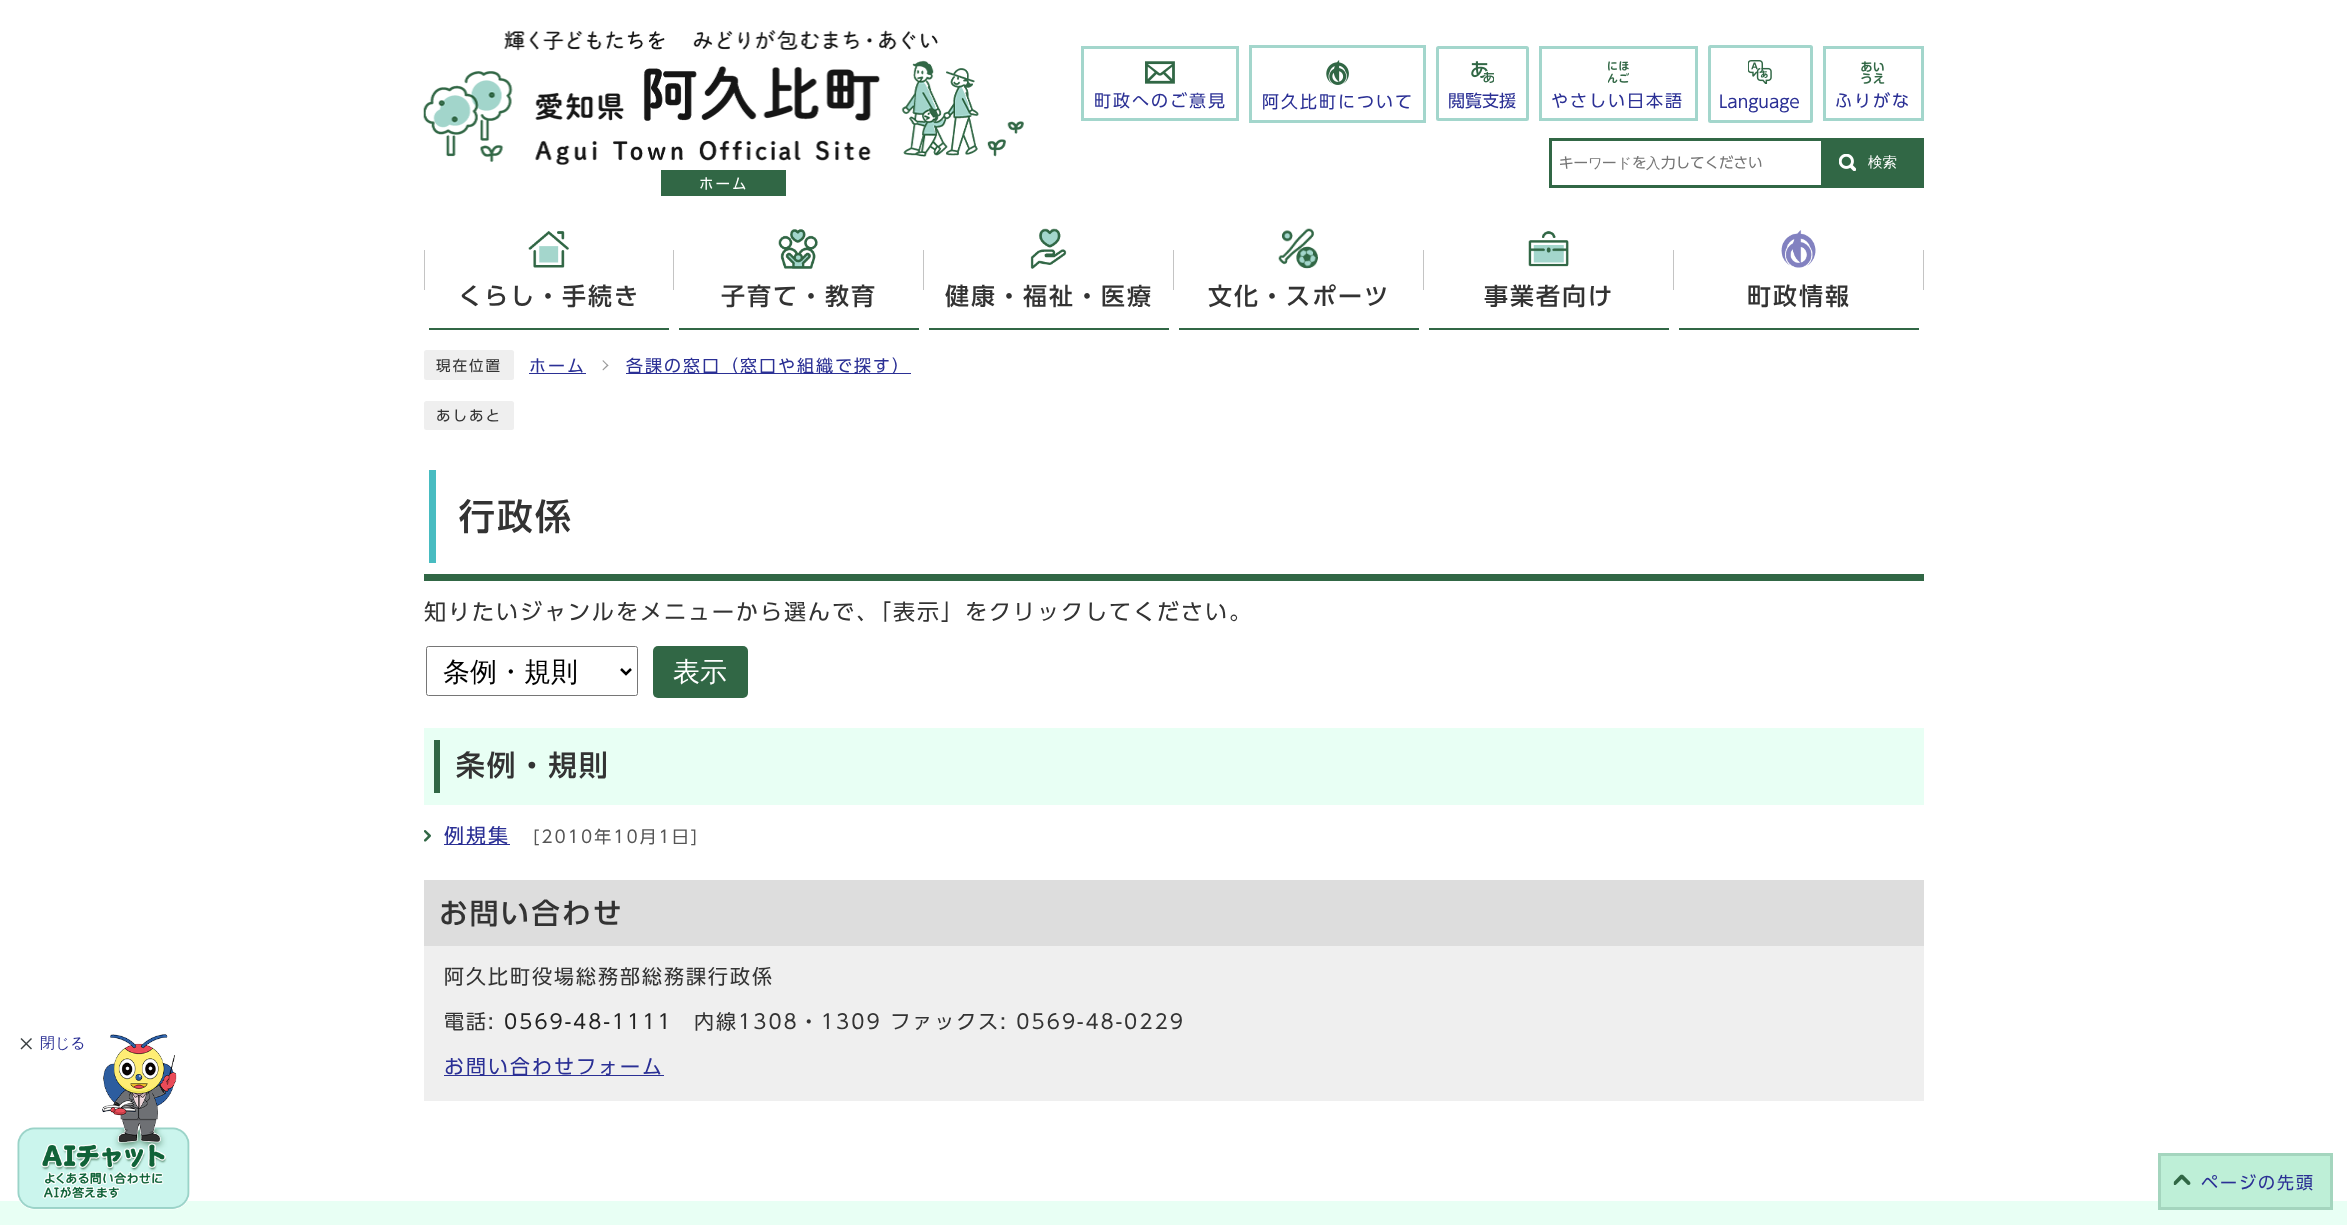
<!DOCTYPE html>
<meta charset="utf-8">
<style>body { margin: 0 } canvas { display: block }</style>
<canvas id="canvas" width="2347" height="1225"></canvas>
<script type="module">
  const canvas = document.getElementById("canvas");
  const g = canvas.getContext("2d");
  g.miterLimit = 4;
  g.fontKerning = "normal";
  function drawText(s, x, y, [font, color]) {
    g.font = font;
    g.fillStyle = color;
    g.fillText(s, x, y);
  }
  function fillBox(x, y, w, h, color) {
    g.fillStyle = color;
    g.fillRect(x, y, w, h);
  }
  function fillRounded(x, y, w, h, r, color) {
    g.fillStyle = color;
    g.beginPath();
    g.roundRect(x, y, w, h, r);
    g.fill();
  }
  async function drawPicture(src, x, y, w, h) {
    const img = new Image();
    img.src = src;
    await img.decode();
    g.drawImage(img, x, y, w, h);
  }

  const s1 = ["17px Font", "#2B3095"];
  const s2 = ["14.5px Font", "#757575"];
  const s3 = ["500 14.5px WenQuanYi Zen Hei", "#757575"];
  const s4 = ["500 14.5px WenQuanYi Zen Hei", "#FFFFFF"];
  const s5 = ["14.5px Font", "#FFFFFF"];
  const s6 = ["500 24px Font", "#333333"];
  const s7 = ["14.5px Font", "#333333"];
  const s8 = ["500 36px Font", "#333333"];
  const s9 = ["22px Font", "#333333"];
  const s10 = ["500 27px WenQuanYi Zen Hei", "#000000"];
  const s11 = ["500 27px WenQuanYi Zen Hei", "#FFFFFF"];
  const s12 = ["500 28.75px Font", "#333333"];
  const s13 = ["20px Font", "#2B3095"];
  const s14 = ["17px Font", "#555555"];
  const s15 = ["20px Font", "#333333"];
  const s16 = ["20px Font", "#222222"];
  const s17 = ["500 15px WenQuanYi Zen Hei", "#2B3095"];

  fillBox(0, 0, 2347, 1225, "#FFFFFF");
  g.strokeStyle = "#A3D6CC";
  g.lineWidth = 3;
  g.strokeRect(1082.5, 47.5, 155, 72);
  await drawPicture("pic1.png", 1145, 61, 30, 23);
  g.letterSpacing = "2px";
  drawText("町政へのご意見", 1094, 107, s1);
  g.strokeRect(1250.5, 46.5, 174, 75);
  await drawPicture("pic2.png", 1326, 60, 23, 25);
  drawText("阿久比町について", 1262, 108, s1);
  g.beginPath();
  g.roundRect(1437.5, 47.5, 90, 72, 1);
  g.stroke();
  await drawPicture("pic3.png", 1471, 61, 23, 22);
  g.letterSpacing = "0px";
  drawText("閲覧支援", 1448, 107, s1);
  g.strokeRect(1540.5, 47.5, 156, 72);
  await drawPicture("pic4.png", 1608, 61, 21, 22);
  g.letterSpacing = "2px";
  drawText("やさしい日本語", 1551, 107, s1);
  g.beginPath();
  g.roundRect(1709.5, 46.5, 102, 75, 1);
  g.stroke();
  await drawPicture("pic5.png", 1748, 60, 24, 24);
  g.letterSpacing = "0px";
  drawText("Language", 1719, 108, s1);
  g.strokeRect(1824.5, 47.5, 98, 72);
  await drawPicture("pic6.png", 1861, 61, 24, 23);
  g.letterSpacing = "2px";
  drawText("ふりがな", 1835, 107, s1);
  g.strokeStyle = "#316745";
  g.strokeRect(1550.5, 139.5, 272, 47);
  g.letterSpacing = "0px";
  drawText("キー", 1559, 168, s2);
  drawText("ワ", 1588, 168, s3);
  drawText("ー", 1602, 168, s2);
  drawText("ド", 1617, 168, s3);
  drawText("を", 1632, 168, s2);
  drawText("入", 1646, 168, s3);
  drawText("力してください", 1661, 168, s2);
  fillBox(1824, 138, 100, 50, "#316745");
  await drawPicture("pic7.png", 1839, 154, 17, 17);
  drawText("検索", 1868, 167, s4);
  await drawPicture("pic8.png", 423, 30, 601, 135);
  fillBox(661, 170, 125, 26, "#316745");
  g.letterSpacing = "2px";
  drawText("ホーム", 699, 189, s5);
  fillBox(429, 328, 240, 2, "#316745");
  fillBox(424, 250, 1, 40, "#C4C4C4");
  fillBox(673, 250, 1, 40, "#C4C4C4");
  await drawPicture("pic9.png", 528, 231, 41, 37);
  drawText("くらし・手続き", 458, 305, s6);
  fillBox(679, 328, 240, 2, "#316745");
  fillBox(923, 250, 1, 40, "#C4C4C4");
  await drawPicture("pic10.png", 778, 229, 40, 40);
  drawText("子育て・教育", 721, 305, s6);
  fillBox(929, 328, 240, 2, "#316745");
  fillBox(1173, 250, 1, 40, "#C4C4C4");
  await drawPicture("pic11.png", 1030, 228, 37, 41);
  drawText("健康・福祉・医療", 945, 305, s6);
  fillBox(1179, 328, 240, 2, "#316745");
  fillBox(1423, 250, 1, 40, "#C4C4C4");
  await drawPicture("pic12.png", 1278, 228, 40, 41);
  drawText("文化・スポーツ", 1208, 305, s6);
  fillBox(1429, 328, 240, 2, "#316745");
  fillBox(1673, 250, 1, 40, "#C4C4C4");
  await drawPicture("pic13.png", 1528, 231, 41, 36);
  drawText("事業者向け", 1484, 305, s6);
  fillBox(1679, 328, 240, 2, "#316745");
  fillBox(1923, 250, 1, 40, "#C4C4C4");
  await drawPicture("pic14.png", 1781, 230, 35, 38);
  drawText("町政情報", 1747, 305, s6);
  fillRounded(424, 350, 90, 30, 2.5, "#EFEFEF");
  drawText("現在位置", 436, 371, s7);
  drawText("ホーム", 529, 372, s1);
  fillBox(529, 373, 57, 1, "#2B3095");
  g.fillStyle = "#999999";
  g.beginPath();
  g.moveTo(602.5, 361);
  g.lineTo(603, 360);
  g.lineTo(608.5, 365.5);
  g.lineTo(607.5, 366);
  g.closePath();
  g.fill();
  g.beginPath();
  g.moveTo(602.5, 369.5);
  g.lineTo(607.5, 364.5);
  g.lineTo(608.5, 365.5);
  g.lineTo(603, 370.5);
  g.closePath();
  g.fill();
  fillBox(626, 373, 285, 1, "#2B3095");
  drawText("各課の窓口（窓口や組織で探す）", 626, 372, s1);
  fillRounded(424, 401, 90, 29, 2.5, "#EFEFEF");
  drawText("あしあと", 436, 421, s7);
  fillBox(424, 574, 1500, 7, "#316745");
  fillBox(429, 470, 7, 93, "#48BCC1");
  drawText("行政係", 459, 530, s8);
  drawText("知りたいジャンルをメニューから選んで、「表示」をクリックしてください。", 424, 620, s9);
  g.beginPath();
  g.roundRect(426.5, 646.5, 211, 49, 2);
  g.strokeStyle = "#767676";
  g.lineWidth = 1;
  g.stroke();
  g.beginPath();
  g.moveTo(621, 669);
  g.lineTo(626, 674);
  g.lineTo(631, 669);
  g.strokeStyle = "#000000";
  g.lineWidth = 2.5;
  g.stroke();
  g.letterSpacing = "0px";
  drawText("条例・規則", 443, 681, s10);
  fillRounded(653, 646, 95, 52, 5, "#316745");
  drawText("表示", 673, 681, s11);
  fillBox(424, 728, 1500, 77, "#E8FFF4");
  fillBox(434, 740, 6, 53, "#316745");
  g.letterSpacing = "2px";
  drawText("条例・規則", 456, 776, s12);
  await drawPicture("pic15.png", 424, 830, 7, 12);
  fillBox(444, 844, 66, 1, "#2B3095");
  drawText("例規集", 444, 843, s13);
  drawText("[2010年10月1日]", 533, 843, s14);
  fillBox(424, 946, 1500, 155, "#EFEFEF");
  fillBox(424, 880, 1500, 66, "#DDDDDD");
  drawText("お問い合わせ", 439, 924, s12);
  drawText("阿久比町役場総務部総務課行政係", 444, 984, s15);
  drawText("電話:", 444, 1029, s15);
  drawText("0569-48-1111", 504, 1029, s16);
  drawText("内線1308・1309 ファックス: 0569-48-0229", 694, 1029, s15);
  fillBox(444, 1075, 220, 1, "#2B3095");
  drawText("お問い合わせフォーム", 444, 1074, s13);
  fillBox(0, 1201, 2347, 24, "#E8FFF4");
  await drawPicture("pic16.png", 17, 1034, 173, 176);
  g.fillStyle = "#3B4043";
  g.beginPath();
  g.moveTo(20.5, 1048.5);
  g.lineTo(31, 1038);
  g.lineTo(32, 1039);
  g.lineTo(21.5, 1049.5);
  g.closePath();
  g.fill();
  g.letterSpacing = "0px";
  drawText("閉じる", 40, 1048, s17);
  g.fillStyle = "#3B4043";
  g.beginPath();
  g.moveTo(21.5, 1038);
  g.lineTo(32, 1048.5);
  g.lineTo(31, 1049.5);
  g.lineTo(20.5, 1039);
  g.closePath();
  g.fill();
  g.fillStyle = "#BEEFD7";
  g.beginPath();
  g.rect(2159.5, 1154.5, 172, 54);
  g.fill();
  g.strokeStyle = "#A4D5BE";
  g.lineWidth = 3;
  g.stroke();
  await drawPicture("pic17.png", 2173, 1174, 18, 11);
  g.letterSpacing = "2px";
  drawText("ページの先頭", 2201, 1189, s1);
</script>
